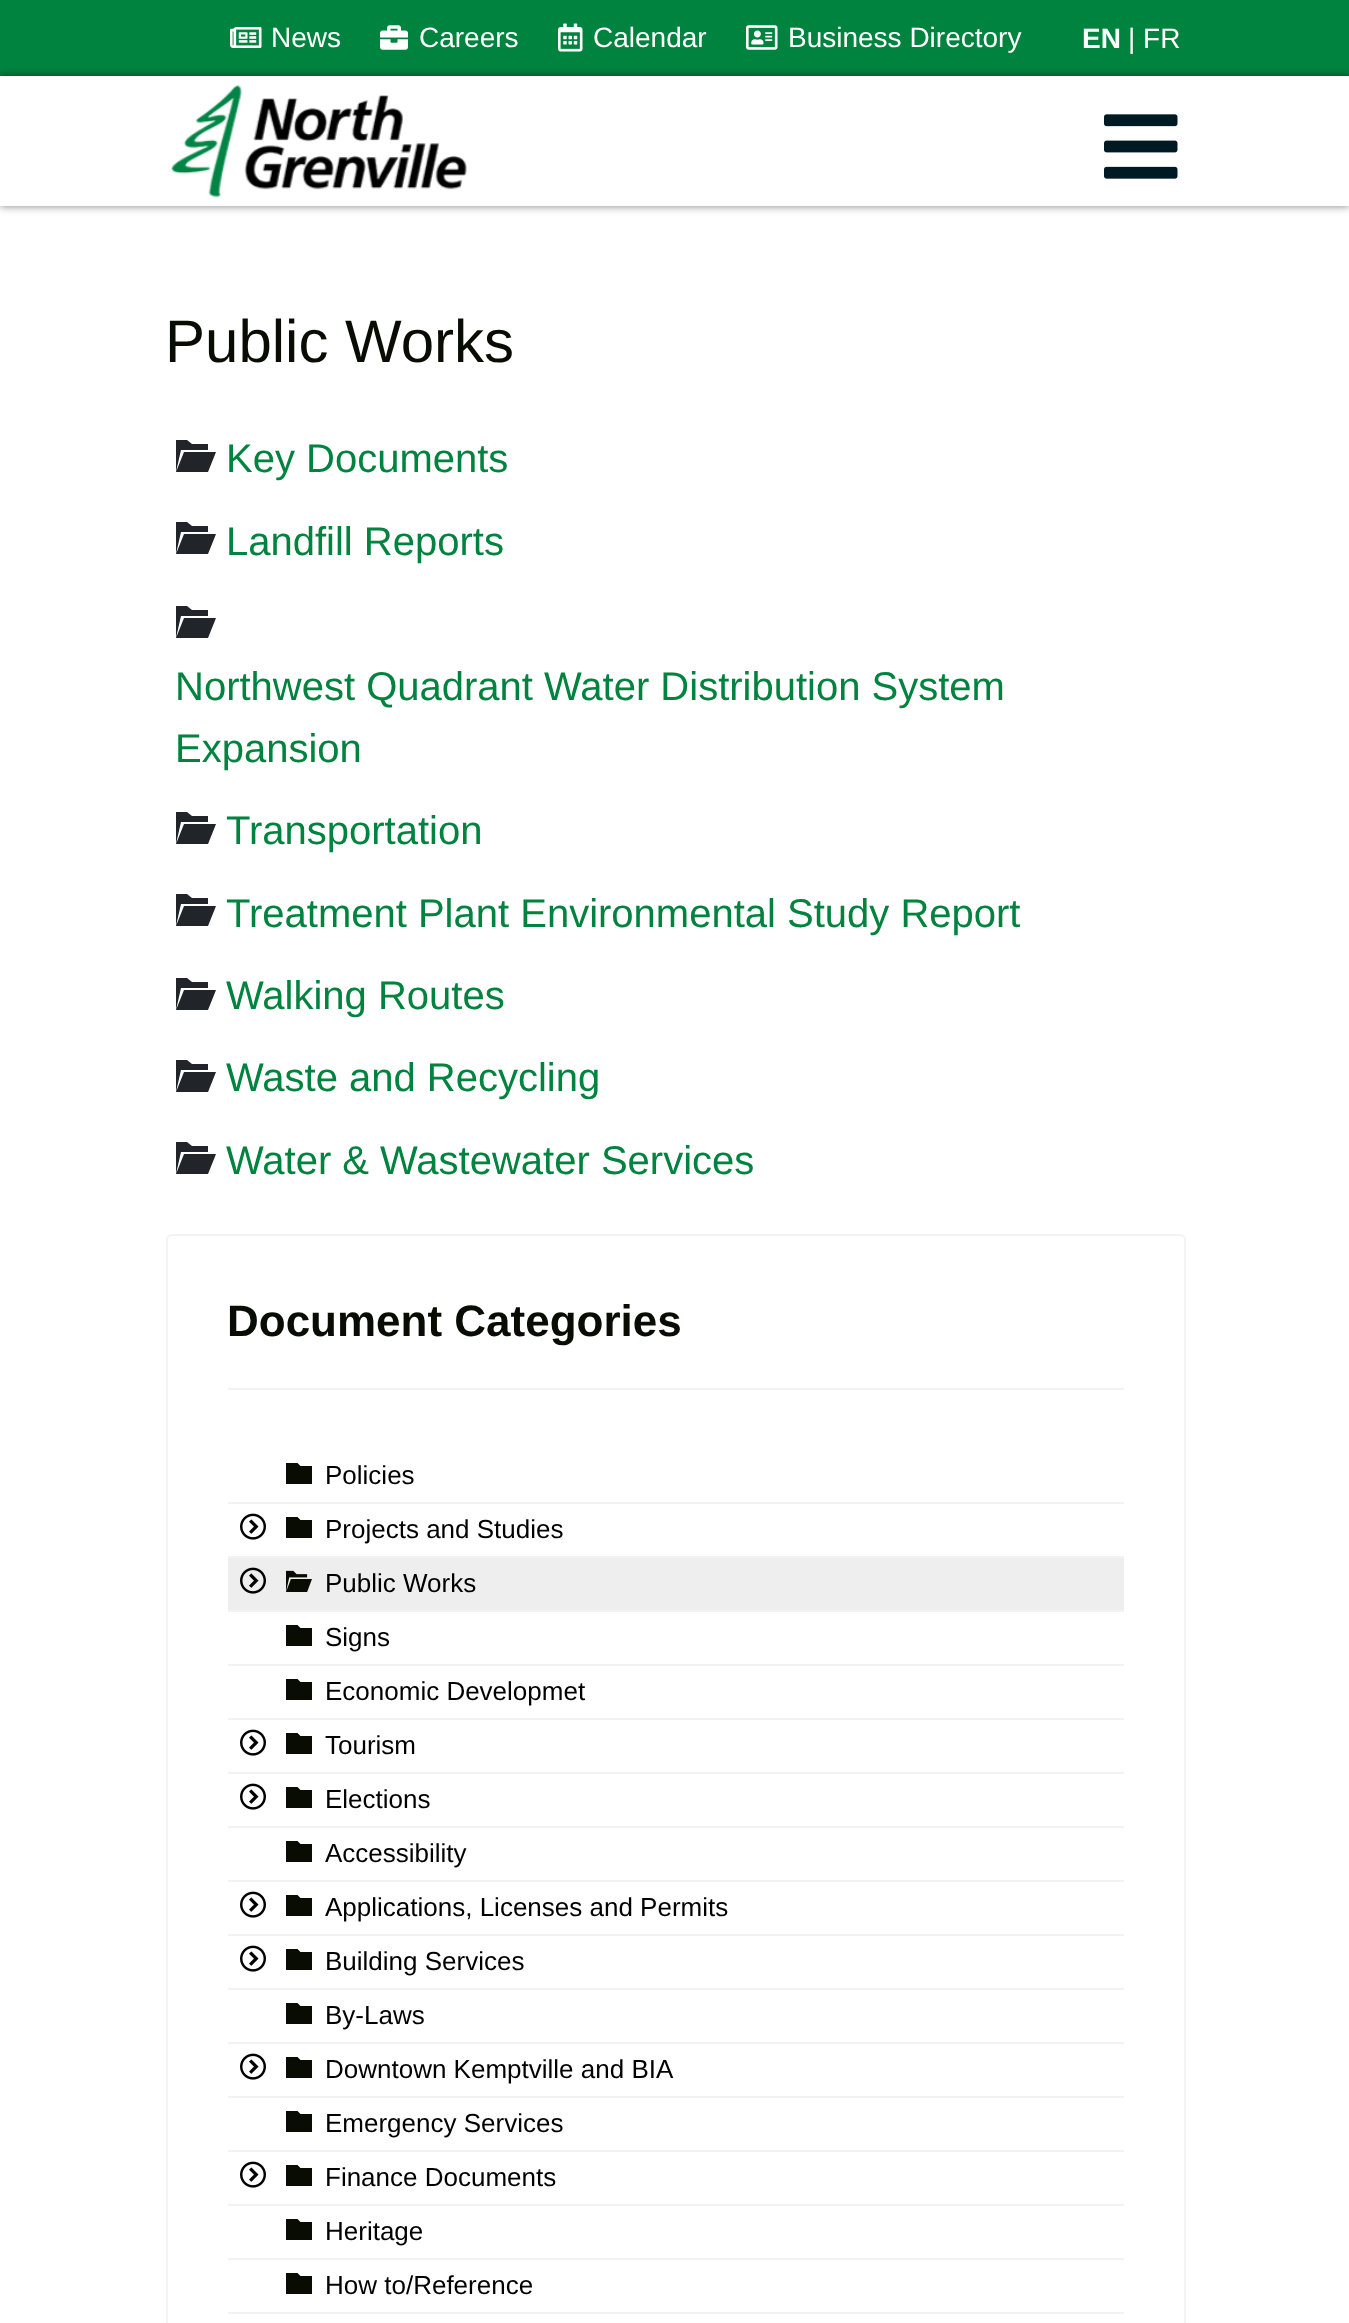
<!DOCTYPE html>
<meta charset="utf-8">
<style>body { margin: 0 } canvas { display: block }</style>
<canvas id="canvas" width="1349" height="2323"></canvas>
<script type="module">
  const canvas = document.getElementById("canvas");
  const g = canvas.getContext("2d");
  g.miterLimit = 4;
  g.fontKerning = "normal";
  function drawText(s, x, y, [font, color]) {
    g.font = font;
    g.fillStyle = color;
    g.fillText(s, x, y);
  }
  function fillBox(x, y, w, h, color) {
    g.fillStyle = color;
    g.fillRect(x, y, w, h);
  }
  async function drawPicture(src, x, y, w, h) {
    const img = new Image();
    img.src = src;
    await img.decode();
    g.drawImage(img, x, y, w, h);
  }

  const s1 = ["28px Liberation Sans", "#FFFFFF"];
  const s2 = ["bold 28px Liberation Sans", "#FFFFFF"];
  const s3 = ["60px Liberation Sans", "#090C02"];
  const s4 = ["40px Liberation Sans", "#00833E"];
  const s5 = ["bold 44px Liberation Sans", "#090C02"];
  const s6 = ["26px Liberation Sans", "#000000"];

  fillBox(0, 0, 1349, 2323, "#FFFFFF");
  fillBox(0, 0, 1349, 76, "#00833E");
  await drawPicture("pic1.png", 230, 27, 32, 21);
  drawText("News", 271, 47, s1);
  await drawPicture("pic2.png", 380, 25, 28, 25);
  drawText("Careers", 419, 47, s1);
  await drawPicture("pic3.png", 558, 23, 25, 29);
  drawText("Calendar", 593, 47, s1);
  await drawPicture("pic4.png", 746, 25, 32, 25);
  drawText("Business Directory", 788, 47, s1);
  drawText("EN", 1082, 48, s2);
  drawText("| FR", 1128, 48, s1);
  g.save();
  g.beginPath();
  g.moveTo(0, 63);
  g.lineTo(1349, 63);
  g.lineTo(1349, 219);
  g.lineTo(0, 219);
  g.closePath();
  g.moveTo(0, 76);
  g.lineTo(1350, 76);
  g.lineTo(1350, 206);
  g.lineTo(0, 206);
  g.closePath();
  g.clip("evenodd");
  g.fillStyle = "rgba(0, 0, 0, 0.5)";
  g.filter = "blur(4px)";
  g.beginPath();
  g.rect(0, 76, 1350, 130);
  g.fill();
  g.filter = "none";
  g.restore();
  await drawPicture("pic5.png", 171, 85, 296, 113);
  await drawPicture("pic6.png", 1104, 114, 74, 65);
  drawText("Public Works", 165, 362, s3);
  g.fillStyle = "#212529";
  g.beginPath();
  g.moveTo(208, 472);
  g.lineTo(216, 452);
  g.lineTo(184, 452);
  g.lineTo(176, 472);
  g.closePath();
  g.moveTo(181, 450);
  g.lineTo(176, 472);
  g.lineTo(176, 440);
  g.lineTo(187, 440);
  g.lineTo(192, 444);
  g.lineTo(208, 444);
  g.lineTo(208, 450);
  g.closePath();
  g.fill();
  drawText("Key Documents", 226, 472, s4);
  g.fillStyle = "#212529";
  g.beginPath();
  g.moveTo(208, 554);
  g.lineTo(216, 534);
  g.lineTo(184, 534);
  g.lineTo(176, 554);
  g.closePath();
  g.moveTo(181, 532);
  g.lineTo(176, 554);
  g.lineTo(176, 522);
  g.lineTo(187, 522);
  g.lineTo(192, 526);
  g.lineTo(208, 526);
  g.lineTo(208, 532);
  g.closePath();
  g.fill();
  drawText("Landfill Reports", 226, 555, s4);
  g.fillStyle = "#212529";
  g.beginPath();
  g.moveTo(208, 638);
  g.lineTo(216, 618);
  g.lineTo(184, 618);
  g.lineTo(176, 638);
  g.closePath();
  g.moveTo(181, 616);
  g.lineTo(176, 638);
  g.lineTo(176, 606);
  g.lineTo(187, 606);
  g.lineTo(192, 610);
  g.lineTo(208, 610);
  g.lineTo(208, 616);
  g.closePath();
  g.fill();
  drawText("Northwest Quadrant Water Distribution System", 175, 700, s4);
  drawText("Expansion", 175, 762, s4);
  g.fillStyle = "#212529";
  g.beginPath();
  g.moveTo(208, 844);
  g.lineTo(216, 824);
  g.lineTo(184, 824);
  g.lineTo(176, 844);
  g.closePath();
  g.moveTo(181, 822);
  g.lineTo(176, 844);
  g.lineTo(176, 812);
  g.lineTo(187, 812);
  g.lineTo(192, 816);
  g.lineTo(208, 816);
  g.lineTo(208, 822);
  g.closePath();
  g.fill();
  drawText("Transportation", 226, 844, s4);
  g.fillStyle = "#212529";
  g.beginPath();
  g.moveTo(208, 926);
  g.lineTo(216, 906);
  g.lineTo(184, 906);
  g.lineTo(176, 926);
  g.closePath();
  g.moveTo(181, 904);
  g.lineTo(176, 926);
  g.lineTo(176, 894);
  g.lineTo(187, 894);
  g.lineTo(192, 898);
  g.lineTo(208, 898);
  g.lineTo(208, 904);
  g.closePath();
  g.fill();
  drawText("Treatment Plant Environmental Study Report", 226, 927, s4);
  g.fillStyle = "#212529";
  g.beginPath();
  g.moveTo(208, 1010);
  g.lineTo(216, 990);
  g.lineTo(184, 990);
  g.lineTo(176, 1010);
  g.closePath();
  g.moveTo(181, 988);
  g.lineTo(176, 1010);
  g.lineTo(176, 978);
  g.lineTo(187, 978);
  g.lineTo(192, 982);
  g.lineTo(208, 982);
  g.lineTo(208, 988);
  g.closePath();
  g.fill();
  drawText("Walking Routes", 226, 1009, s4);
  g.fillStyle = "#212529";
  g.beginPath();
  g.moveTo(208, 1092);
  g.lineTo(216, 1072);
  g.lineTo(184, 1072);
  g.lineTo(176, 1092);
  g.closePath();
  g.moveTo(181, 1070);
  g.lineTo(176, 1092);
  g.lineTo(176, 1060);
  g.lineTo(187, 1060);
  g.lineTo(192, 1064);
  g.lineTo(208, 1064);
  g.lineTo(208, 1070);
  g.closePath();
  g.fill();
  drawText("Waste and Recycling", 226, 1091, s4);
  g.fillStyle = "#212529";
  g.beginPath();
  g.moveTo(208, 1174);
  g.lineTo(216, 1154);
  g.lineTo(184, 1154);
  g.lineTo(176, 1174);
  g.closePath();
  g.moveTo(181, 1152);
  g.lineTo(176, 1174);
  g.lineTo(176, 1142);
  g.lineTo(187, 1142);
  g.lineTo(192, 1146);
  g.lineTo(208, 1146);
  g.lineTo(208, 1152);
  g.closePath();
  g.fill();
  drawText("Water & Wastewater Services", 226, 1174, s4);
  g.beginPath();
  g.roundRect(167, 1235, 1018, 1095, 5);
  g.strokeStyle = "#F3F3F3";
  g.lineWidth = 2;
  g.stroke();
  fillBox(228, 1388, 896, 2, "#F3F3F3");
  drawText("Document Categories", 227, 1336, s5);
  fillBox(228, 1502, 896, 2, "#F3F3F3");
  g.fillStyle = "#090C02";
  g.beginPath();
  g.moveTo(297.5, 1463);
  g.lineTo(300.5, 1466);
  g.lineTo(312, 1466);
  g.lineTo(312, 1484);
  g.lineTo(286, 1484);
  g.lineTo(286, 1463);
  g.closePath();
  g.fill();
  drawText("Policies", 325, 1484, s6);
  fillBox(228, 1556, 896, 2, "#F3F3F3");
  await drawPicture("pic7.png", 240, 1513, 26, 27);
  g.fillStyle = "#090C02";
  g.beginPath();
  g.moveTo(297.5, 1517);
  g.lineTo(300.5, 1520);
  g.lineTo(312, 1520);
  g.lineTo(312, 1538);
  g.lineTo(286, 1538);
  g.lineTo(286, 1517);
  g.closePath();
  g.fill();
  drawText("Projects and Studies", 325, 1538, s6);
  fillBox(228, 1610, 896, 2, "#F3F3F3");
  fillBox(228, 1558, 896, 52, "#EEEEEE");
  await drawPicture("pic8.png", 240, 1567, 26, 27);
  await drawPicture("pic9.png", 286, 1570, 26, 22);
  drawText("Public Works", 325, 1592, s6);
  fillBox(228, 1664, 896, 2, "#F3F3F3");
  g.fillStyle = "#090C02";
  g.beginPath();
  g.moveTo(297.5, 1625);
  g.lineTo(300.5, 1628);
  g.lineTo(312, 1628);
  g.lineTo(312, 1646);
  g.lineTo(286, 1646);
  g.lineTo(286, 1625);
  g.closePath();
  g.fill();
  drawText("Signs", 325, 1646, s6);
  fillBox(228, 1718, 896, 2, "#F3F3F3");
  g.fillStyle = "#090C02";
  g.beginPath();
  g.moveTo(297.5, 1679);
  g.lineTo(300.5, 1682);
  g.lineTo(312, 1682);
  g.lineTo(312, 1700);
  g.lineTo(286, 1700);
  g.lineTo(286, 1679);
  g.closePath();
  g.fill();
  drawText("Economic Developmet", 325, 1700, s6);
  fillBox(228, 1772, 896, 2, "#F3F3F3");
  await drawPicture("pic7.png", 240, 1729, 26, 27);
  g.fillStyle = "#090C02";
  g.beginPath();
  g.moveTo(297.5, 1733);
  g.lineTo(300.5, 1736);
  g.lineTo(312, 1736);
  g.lineTo(312, 1754);
  g.lineTo(286, 1754);
  g.lineTo(286, 1733);
  g.closePath();
  g.fill();
  drawText("Tourism", 325, 1754, s6);
  fillBox(228, 1826, 896, 2, "#F3F3F3");
  await drawPicture("pic7.png", 240, 1783, 26, 27);
  g.fillStyle = "#090C02";
  g.beginPath();
  g.moveTo(297.5, 1787);
  g.lineTo(300.5, 1790);
  g.lineTo(312, 1790);
  g.lineTo(312, 1808);
  g.lineTo(286, 1808);
  g.lineTo(286, 1787);
  g.closePath();
  g.fill();
  drawText("Elections", 325, 1808, s6);
  fillBox(228, 1880, 896, 2, "#F3F3F3");
  g.fillStyle = "#090C02";
  g.beginPath();
  g.moveTo(297.5, 1841);
  g.lineTo(300.5, 1844);
  g.lineTo(312, 1844);
  g.lineTo(312, 1862);
  g.lineTo(286, 1862);
  g.lineTo(286, 1841);
  g.closePath();
  g.fill();
  drawText("Accessibility", 325, 1862, s6);
  fillBox(228, 1934, 896, 2, "#F3F3F3");
  await drawPicture("pic7.png", 240, 1891, 26, 27);
  g.fillStyle = "#090C02";
  g.beginPath();
  g.moveTo(297.5, 1895);
  g.lineTo(300.5, 1898);
  g.lineTo(312, 1898);
  g.lineTo(312, 1916);
  g.lineTo(286, 1916);
  g.lineTo(286, 1895);
  g.closePath();
  g.fill();
  drawText("Applications, Licenses and Permits", 325, 1916, s6);
  fillBox(228, 1988, 896, 2, "#F3F3F3");
  await drawPicture("pic7.png", 240, 1945, 26, 27);
  g.fillStyle = "#090C02";
  g.beginPath();
  g.moveTo(297.5, 1949);
  g.lineTo(300.5, 1952);
  g.lineTo(312, 1952);
  g.lineTo(312, 1970);
  g.lineTo(286, 1970);
  g.lineTo(286, 1949);
  g.closePath();
  g.fill();
  drawText("Building Services", 325, 1970, s6);
  fillBox(228, 2042, 896, 2, "#F3F3F3");
  g.fillStyle = "#090C02";
  g.beginPath();
  g.moveTo(297.5, 2003);
  g.lineTo(300.5, 2006);
  g.lineTo(312, 2006);
  g.lineTo(312, 2024);
  g.lineTo(286, 2024);
  g.lineTo(286, 2003);
  g.closePath();
  g.fill();
  drawText("By-Laws", 325, 2024, s6);
  fillBox(228, 2096, 896, 2, "#F3F3F3");
  await drawPicture("pic7.png", 240, 2053, 26, 27);
  g.fillStyle = "#090C02";
  g.beginPath();
  g.moveTo(297.5, 2057);
  g.lineTo(300.5, 2060);
  g.lineTo(312, 2060);
  g.lineTo(312, 2078);
  g.lineTo(286, 2078);
  g.lineTo(286, 2057);
  g.closePath();
  g.fill();
  drawText("Downtown Kemptville and BIA", 325, 2078, s6);
  fillBox(228, 2150, 896, 2, "#F3F3F3");
  g.fillStyle = "#090C02";
  g.beginPath();
  g.moveTo(297.5, 2111);
  g.lineTo(300.5, 2114);
  g.lineTo(312, 2114);
  g.lineTo(312, 2132);
  g.lineTo(286, 2132);
  g.lineTo(286, 2111);
  g.closePath();
  g.fill();
  drawText("Emergency Services", 325, 2132, s6);
  fillBox(228, 2204, 896, 2, "#F3F3F3");
  await drawPicture("pic7.png", 240, 2161, 26, 27);
  g.fillStyle = "#090C02";
  g.beginPath();
  g.moveTo(297.5, 2165);
  g.lineTo(300.5, 2168);
  g.lineTo(312, 2168);
  g.lineTo(312, 2186);
  g.lineTo(286, 2186);
  g.lineTo(286, 2165);
  g.closePath();
  g.fill();
  drawText("Finance Documents", 325, 2186, s6);
  fillBox(228, 2258, 896, 2, "#F3F3F3");
  g.fillStyle = "#090C02";
  g.beginPath();
  g.moveTo(297.5, 2219);
  g.lineTo(300.5, 2222);
  g.lineTo(312, 2222);
  g.lineTo(312, 2240);
  g.lineTo(286, 2240);
  g.lineTo(286, 2219);
  g.closePath();
  g.fill();
  drawText("Heritage", 325, 2240, s6);
  fillBox(228, 2312, 896, 2, "#F3F3F3");
  g.fillStyle = "#090C02";
  g.beginPath();
  g.moveTo(297.5, 2273);
  g.lineTo(300.5, 2276);
  g.lineTo(312, 2276);
  g.lineTo(312, 2294);
  g.lineTo(286, 2294);
  g.lineTo(286, 2273);
  g.closePath();
  g.fill();
  drawText("How to/Reference", 325, 2294, s6);
</script>
